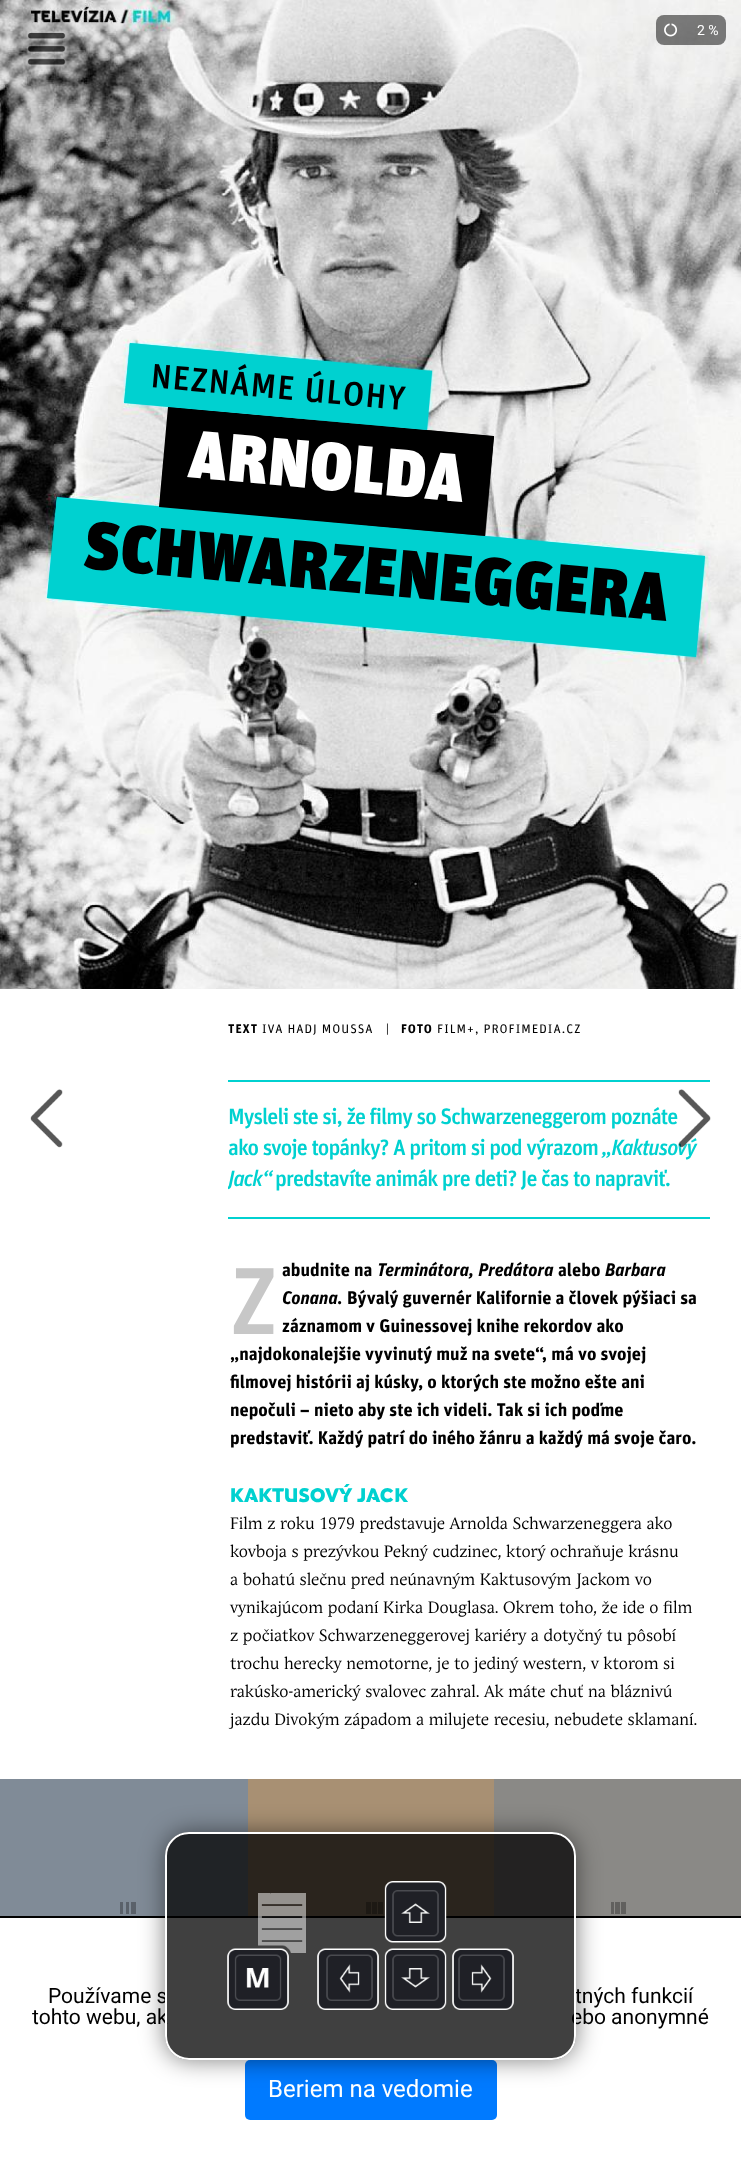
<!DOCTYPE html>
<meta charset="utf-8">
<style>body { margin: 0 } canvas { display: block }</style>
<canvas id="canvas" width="741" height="2167"></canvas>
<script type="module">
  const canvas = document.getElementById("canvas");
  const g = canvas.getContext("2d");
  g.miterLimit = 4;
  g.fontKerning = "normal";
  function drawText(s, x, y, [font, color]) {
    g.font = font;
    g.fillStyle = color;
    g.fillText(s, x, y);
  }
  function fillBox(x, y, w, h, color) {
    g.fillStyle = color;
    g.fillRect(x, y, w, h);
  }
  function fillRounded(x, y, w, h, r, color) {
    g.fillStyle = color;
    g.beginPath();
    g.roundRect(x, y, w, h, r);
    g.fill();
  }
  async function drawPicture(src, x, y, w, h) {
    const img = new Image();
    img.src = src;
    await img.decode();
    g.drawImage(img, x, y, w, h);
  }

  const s1 = ["14px Roboto", "#FFFFFF"];
  const s2 = ["bold 12.5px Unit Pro", "#000000"];
  const s3 = ["12.5px Unit Pro", "#000000"];
  const s4 = ["500 22.2px Unit Pro", "#00D1D0"];
  const s5 = ["500 22.2px 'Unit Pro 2'", "#00D1D0"];
  const s6 = ["bold 18.3px Unit Pro", "#000000"];
  const s7 = ["bold 18.3px 'Unit Pro 2'", "#000000"];
  const s8 = ["500 95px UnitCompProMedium", "#C7C7C7"];
  const s9 = ["19.25px 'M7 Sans'", "#00D1D0"];
  const s10 = ["16.4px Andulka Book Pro", "#000000"];
  const s11 = ["21px Roboto", "#000000"];
  const s12 = ["24px Roboto", "#FFFFFF"];

  fillBox(0, 0, 741, 2167, "#FFFFFF");
  await drawPicture("pic3.png", 0, 0, 254, 254);
  await drawPicture("pic1.png", 25, 30, 43, 38);
  await drawPicture("pic5.png", 494, 0, 247, 254);
  fillRounded(656, 15, 70, 30, 8, "rgba(0, 0, 0, 0.5)");
  await drawPicture("pic2.png", 664, 23, 14, 14);
  drawText("2 %", 697, 35, s1);
  await drawPicture("pic4.png", 254, 0, 240, 254);
  await drawPicture("pic6.png", 0, 254, 247, 247);
  await drawPicture("pic7.png", 247, 254, 248, 247);
  await drawPicture("pic8.png", 495, 254, 246, 247);
  await drawPicture("pic9.png", 0, 501, 247, 240);
  await drawPicture("pic10.png", 247, 501, 247, 240);
  await drawPicture("pic11.png", 494, 501, 247, 247);
  await drawPicture("pic12.png", 0, 741, 254, 248);
  await drawPicture("pic13.png", 254, 741, 248, 248);
  await drawPicture("pic14.png", 501, 748, 240, 241);
  g.fillStyle = "#00D1D0";
  g.beginPath();
  g.moveTo(57, 497);
  g.lineTo(705, 556);
  g.lineTo(696, 657);
  g.lineTo(47, 598);
  g.lineTo(52, 546);
  g.closePath();
  g.fill();
  g.fillStyle = "#000000";
  g.beginPath();
  g.moveTo(168, 407);
  g.lineTo(494, 436);
  g.lineTo(485, 536);
  g.lineTo(159, 507);
  g.closePath();
  g.fill();
  g.fillStyle = "#00D1D0";
  g.beginPath();
  g.moveTo(130, 343);
  g.lineTo(432, 371);
  g.lineTo(427, 430);
  g.lineTo(124, 403);
  g.closePath();
  g.fill();
  g.letterSpacing = "1px";
  g.font = "500 33.75px Unit Pro";
  g.fillStyle = "#000000";
  g.save();
  g.translate(150, 387);
  g.rotate(5.2 * Math.PI / 180);
  g.fillText("NEZNÁME ÚLOHY", 0, 0);
  g.restore();
  g.font = "900 67.5px Unit Pro";
  g.fillStyle = "#FFFFFF";
  g.save();
  g.translate(187, 477);
  g.rotate(5.2 * Math.PI / 180);
  g.fillText("ARNOLDA", 0, 0);
  g.restore();
  g.fillStyle = "#000000";
  g.save();
  g.translate(83, 568);
  g.rotate(5.2 * Math.PI / 180);
  g.fillText("SCHWARZENEGGERA", 0, 0);
  g.restore();
  fillBox(684, 923, 11, 4, "rgba(0, 0, 0, 0.3)");
  fillBox(683, 927, 5, 12, "rgba(0, 0, 0, 0.3)");
  fillBox(689, 927, 5, 12, "rgba(0, 0, 0, 0.3)");
  fillBox(684, 929, 11, 4, "rgba(0, 0, 0, 0.3)");
  fillBox(684, 935, 11, 4, "rgba(0, 0, 0, 0.3)");
  fillBox(695, 927, 5, 12, "rgba(0, 0, 0, 0.3)");
  drawText("TEXT", 228, 1033, s2);
  drawText("IVA HADJ MOUSSA   |", 262, 1033, s3);
  drawText("FOTO", 401, 1033, s2);
  drawText("FILM+, PROFIMEDIA.CZ", 437, 1033, s3);
  fillBox(228, 1080, 482, 2, "#00D1D0");
  fillBox(228, 1217, 482, 2, "#00D1D0");
  g.letterSpacing = "-0.95px";
  drawText("Mysleli ste si, že filmy so Schwarzeneggerom poznáte", 228, 1124, s4);
  drawText("ako svoje topánky? A pritom si pod výrazom", 228, 1155, s4);
  drawText("„Kaktusový", 602, 1155, s5);
  g.save();
  g.beginPath();
  g.rect(228, 1082, 482, 135);
  g.clip();
  drawText("Jack“", 228, 1186, s5);
  g.restore();
  drawText("predstavíte animák pre deti? Je čas to napraviť.", 275, 1186, s4);
  g.letterSpacing = "0px";
  drawText("abudnite na", 282, 1276, s6);
  drawText("Terminátora, Predátora", 377, 1276, s7);
  drawText("alebo", 558, 1276, s6);
  drawText("Barbara", 605, 1276, s7);
  drawText("Conana.", 282, 1304, s7);
  drawText("Bývalý guvernér Kalifornie a človek pýšiaci sa", 347, 1304, s6);
  drawText("záznamom v Guinessovej knihe rekordov ako", 282, 1332, s6);
  drawText("„najdokonalejšie vyvinutý muž na svete“, má vo svojej", 230, 1360, s6);
  drawText("filmovej histórii aj kúsky, o ktorých ste možno ešte ani", 230, 1388, s6);
  drawText("nepočuli – nieto aby ste ich videli. Tak si ich poďme", 230, 1416, s6);
  drawText("predstaviť. Každý patrí do iného žánru a každý má svoje čaro.", 230, 1444, s6);
  g.letterSpacing = "5px";
  drawText("Z", 230, 1334, s8);
  g.letterSpacing = "0px";
  drawText("KAKTUSOVÝ JACK", 230, 1502, s9);
  drawText("Film z roku 1979 predstavuje Arnolda Schwarzeneggera ako", 230, 1529, s10);
  drawText("kovboja s prezývkou Pekný cudzinec, ktorý ochraňuje krásnu", 230, 1557, s10);
  drawText("a bohatú slečnu pred neúnavným Kaktusovým Jackom vo", 230, 1585, s10);
  drawText("vynikajúcom podaní Kirka Douglasa. Okrem toho, že ide o film", 230, 1613, s10);
  drawText("z počiatkov Schwarzeneggerovej kariéry a dotyčný tu pôsobí", 230, 1641, s10);
  drawText("trochu herecky nemotorne, je to jediný western, v ktorom si", 230, 1669, s10);
  drawText("rakúsko-americký svalovec zahral. Ak máte chuť na bláznivú", 230, 1697, s10);
  drawText("jazdu Divokým západom a milujete recesiu, nebudete sklamaní.", 230, 1725, s10);
  fillBox(0, 1779, 248, 137, "#808B97");
  fillBox(120, 1902, 3, 12, "#5A616A");
  fillBox(126, 1902, 3, 12, "#5A616A");
  fillBox(131, 1902, 5, 12, "#5A616A");
  fillBox(248, 1779, 246, 137, "#A89073");
  fillBox(366, 1902, 5, 12, "#766551");
  fillBox(372, 1902, 5, 12, "#766551");
  fillBox(378, 1902, 5, 12, "#766551");
  fillBox(494, 1779, 247, 137, "#8A8986");
  fillBox(611, 1902, 3, 12, "#61605E");
  fillBox(615, 1902, 5, 12, "#61605E");
  fillBox(621, 1902, 5, 12, "#61605E");
  await drawPicture("pic15.png", 30, 1089, 33, 59);
  await drawPicture("pic16.png", 676, 1089, 35, 61);
  fillBox(0, 1916, 741, 2, "#000000");
  fillRounded(245, 2060, 252, 60, 5, "#007AFF");
  g.save();
  g.beginPath();
  g.moveTo(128, 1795);
  g.lineTo(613, 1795);
  g.lineTo(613, 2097);
  g.lineTo(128, 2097);
  g.closePath();
  g.moveTo(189, 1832);
  g.lineTo(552, 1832);
  g.bezierCurveTo(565.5, 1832, 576, 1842.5, 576, 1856);
  g.lineTo(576, 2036);
  g.bezierCurveTo(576, 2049.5, 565.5, 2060, 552, 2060);
  g.lineTo(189, 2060);
  g.bezierCurveTo(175.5, 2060, 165, 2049.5, 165, 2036);
  g.lineTo(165, 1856);
  g.bezierCurveTo(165, 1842.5, 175.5, 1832, 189, 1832);
  g.closePath();
  g.clip("evenodd");
  g.fillStyle = "rgba(0, 0, 0, 0.5)";
  g.filter = "blur(12px)";
  g.beginPath();
  g.roundRect(165, 1832, 411, 228, 24);
  g.fill();
  g.filter = "none";
  g.restore();
  drawText("Používame s", 48, 2003, s11);
  drawText("tných funkcií", 575, 2003, s11);
  drawText("tohto webu, ak", 32, 2024, s11);
  drawText("ebo anonymné", 571, 2024, s11);
  fillRounded(165, 1832, 411, 228, 24, "rgba(0, 0, 0, 0.75)");
  await drawPicture("pic17.png", 227, 1881, 287, 129);
  g.beginPath();
  g.roundRect(166, 1833, 409, 226, 23);
  g.strokeStyle = "#FFFFFF";
  g.lineWidth = 2;
  g.stroke();
  drawText("Beriem na vedomie", 268, 2097, s12);
</script>
